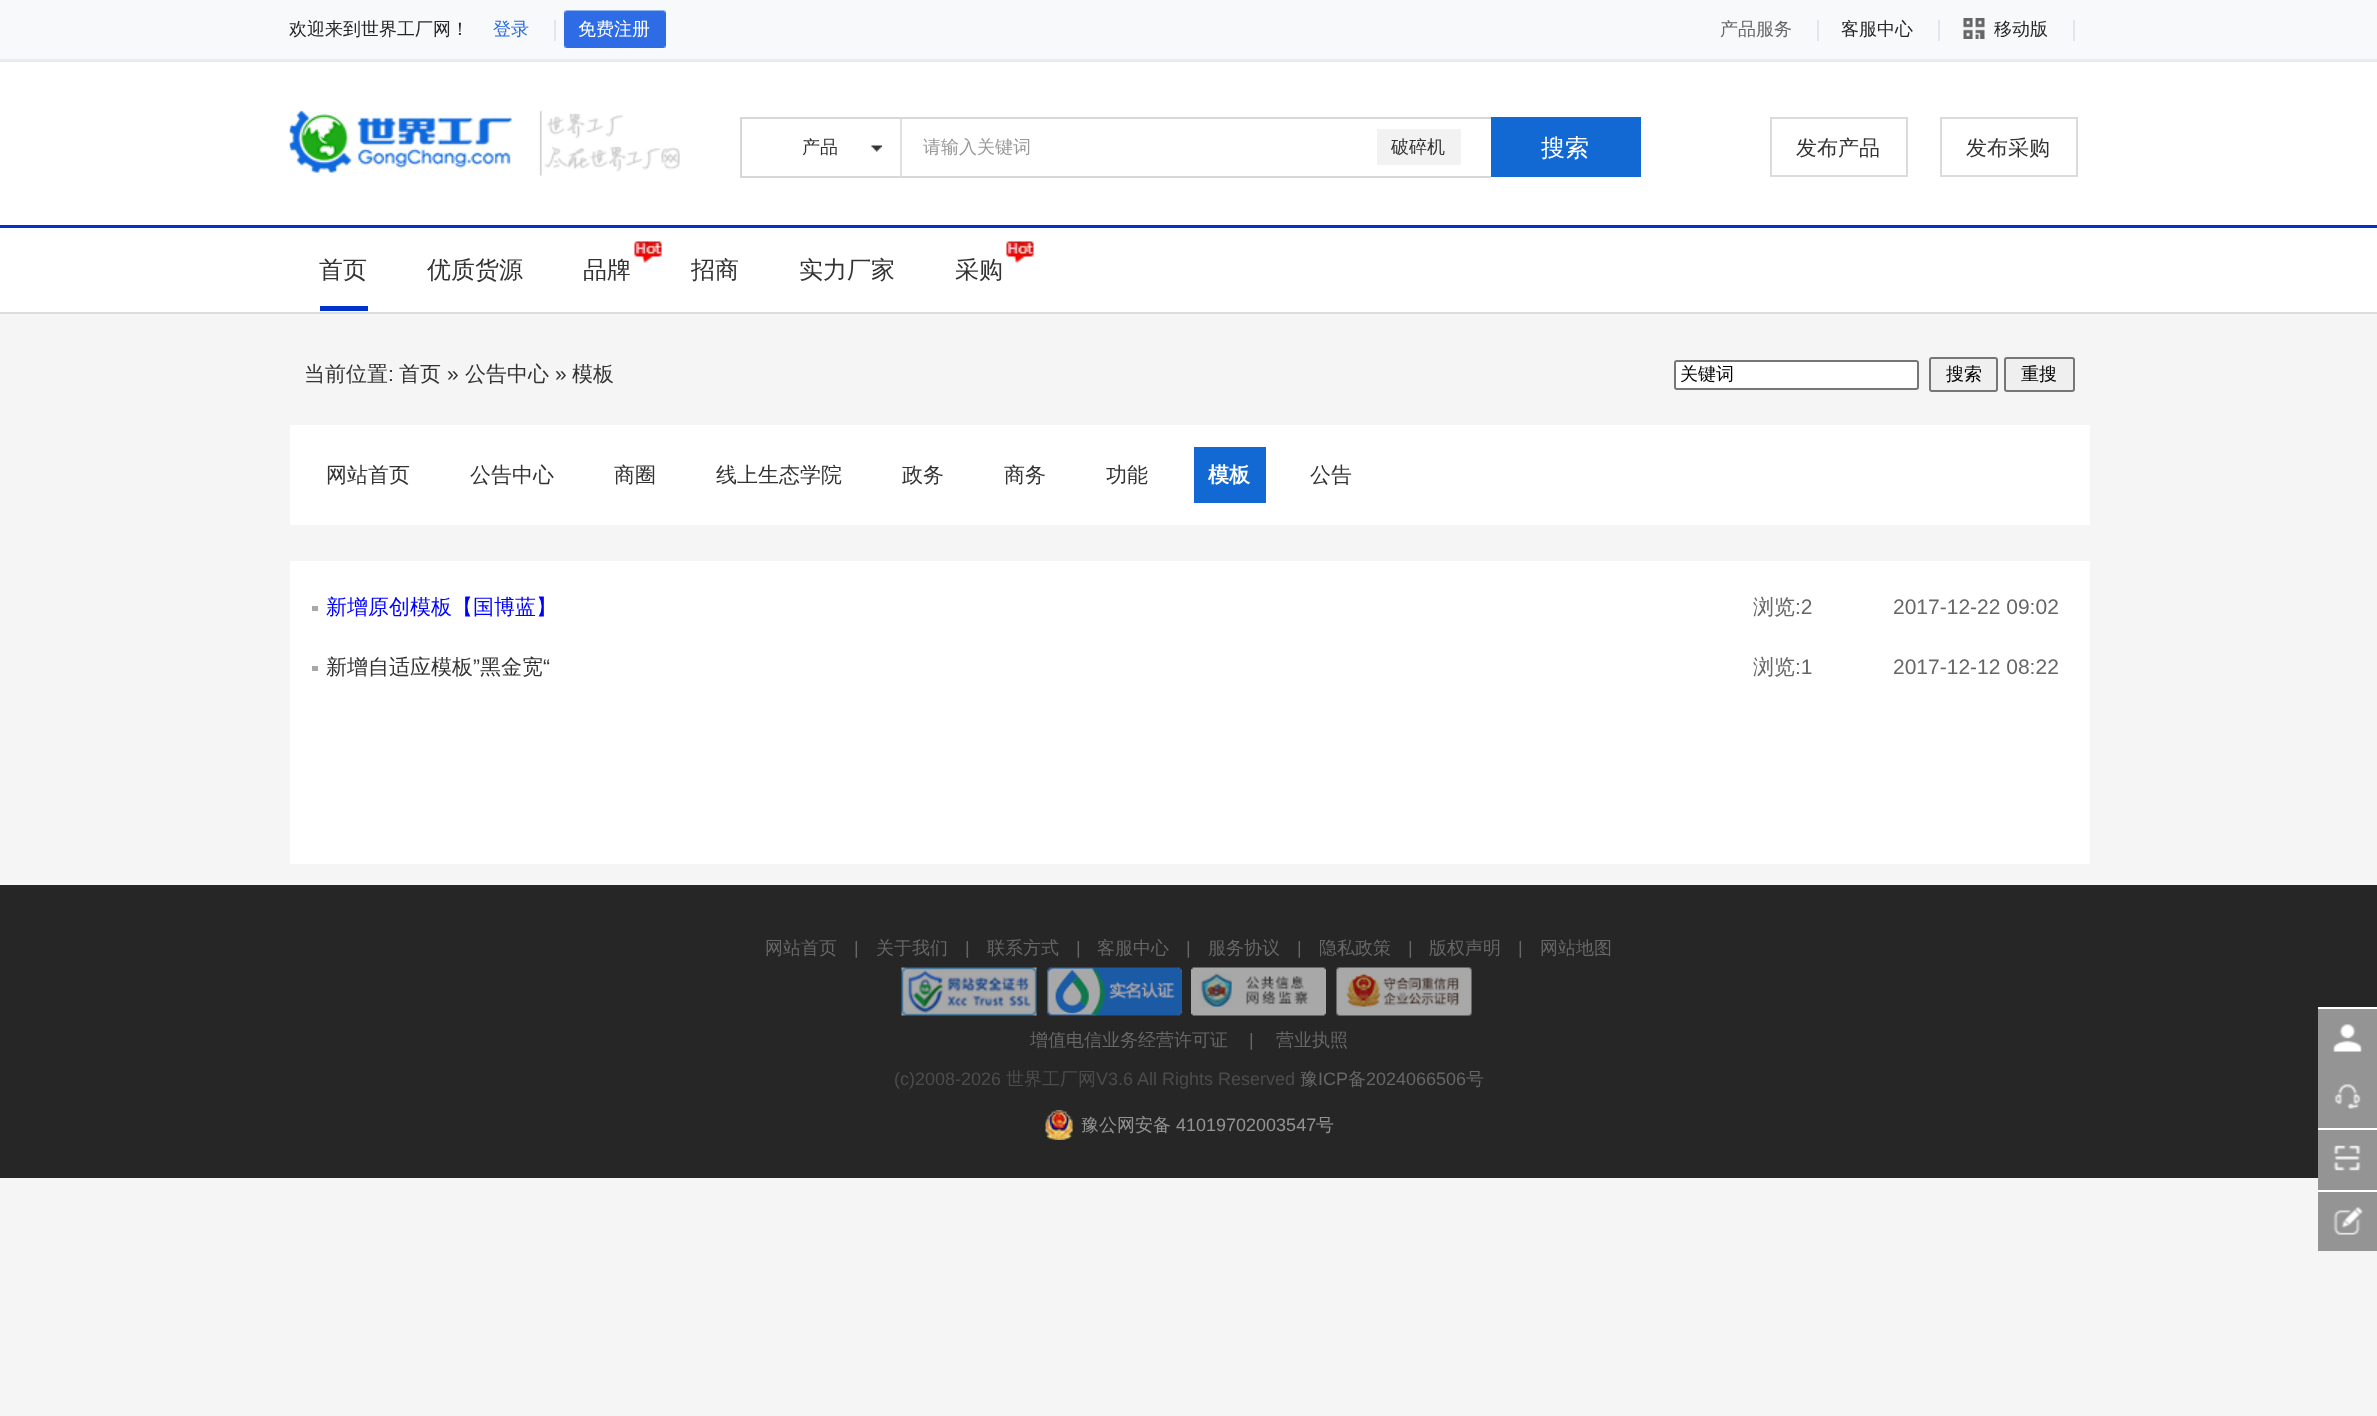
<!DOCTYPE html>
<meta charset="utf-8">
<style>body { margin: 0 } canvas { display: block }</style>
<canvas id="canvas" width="2377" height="1416"></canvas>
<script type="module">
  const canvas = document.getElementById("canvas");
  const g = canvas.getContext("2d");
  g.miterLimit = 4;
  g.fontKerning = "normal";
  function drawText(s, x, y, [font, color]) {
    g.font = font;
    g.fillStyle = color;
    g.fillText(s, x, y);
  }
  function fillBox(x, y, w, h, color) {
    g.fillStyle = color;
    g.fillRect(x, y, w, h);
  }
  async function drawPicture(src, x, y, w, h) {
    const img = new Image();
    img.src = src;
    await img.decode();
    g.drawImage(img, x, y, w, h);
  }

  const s1 = ["500 18px WenQuanYi Zen Hei", "#262626"];
  const s2 = ["500 18px WenQuanYi Zen Hei", "#2769DC"];
  const s3 = ["500 18px WenQuanYi Zen Hei", "#FFFFFF"];
  const s4 = ["500 18px WenQuanYi Zen Hei", "#666666"];
  const s5 = ["500 18px WenQuanYi Zen Hei", "#333333"];
  const s6 = ["500 18px WenQuanYi Zen Hei", "#999999"];
  const s7 = ["500 24px WenQuanYi Zen Hei", "#FFFFFF"];
  const s8 = ["500 21px WenQuanYi Zen Hei", "#333333"];
  const s9 = ["500 24px WenQuanYi Zen Hei", "#333333"];
  const s10 = ["21px Liberation Sans", "#333333"];
  const s11 = ["500 18px WenQuanYi Zen Hei", "#000000"];
  const s12 = ["bold 21px WenQuanYi Zen Hei", "#FFFFFF"];
  const s13 = ["500 21px WenQuanYi Zen Hei", "#0000FF"];
  const s14 = ["500 21px WenQuanYi Zen Hei", "#666666"];
  const s15 = ["21px Liberation Sans", "#666666"];
  const s16 = ["18px Liberation Sans", "#666666"];
  const s17 = ["18px Liberation Sans", "#4C4C4C"];
  const s18 = ["500 18px WenQuanYi Zen Hei", "#4C4C4C"];
  const s19 = ["500 18px WenQuanYi Zen Hei", "#939393"];
  const s20 = ["18px Liberation Sans", "#939393"];

  fillBox(0, 0, 2377, 1416, "#F5F5F5");
  fillBox(0, 61, 2377, 1, "#E6E6E6");
  fillBox(0, 0, 2377, 59, "#F7F9FA");
  fillBox(0, 59, 2377, 2, "#E8EDF2");
  drawText("欢迎来到世界工厂网！", 289, 35, s1);
  drawText("登录", 493, 35, s2);
  fillBox(554, 20, 2, 21, "#E0E6ED");
  await drawPicture("pic1.png", 564, 10, 102, 38);
  drawText("免费注册", 578, 35, s3);
  drawText("产品服务", 1720, 35, s4);
  fillBox(1817, 20, 2, 21, "#E0E6ED");
  drawText("客服中心", 1841, 35, s1);
  fillBox(1938, 20, 2, 21, "#E0E6ED");
  await drawPicture("pic2.png", 1963, 18, 22, 21);
  drawText("移动版", 1994, 35, s1);
  fillBox(2073, 20, 2, 21, "#E0E6ED");
  fillBox(0, 62, 2377, 163, "#FFFFFF");
  await drawPicture("pic3.png", 289, 110, 223, 63);
  await drawPicture("pic4.png", 539, 110, 141, 66);
  fillBox(740, 117, 751, 2, "#D7D7D7");
  fillBox(740, 176, 751, 2, "#D7D7D7");
  fillBox(740, 117, 2, 60, "#D7D7D7");
  await drawPicture("pic5.png", 871, 145, 11, 7);
  fillBox(900, 119, 2, 58, "#E0E0E0");
  drawText("产品", 802, 153, s5);
  drawText("请输入关键词", 923, 153, s6);
  fillBox(1377, 129, 84, 36, "#F2F2F2");
  drawText("破碎机", 1391, 153, s5);
  fillBox(1491, 117, 150, 60, "#1269D3");
  drawText("搜索", 1541, 156, s7);
  g.strokeStyle = "#DBDBDB";
  g.lineWidth = 2;
  g.strokeRect(1771, 118, 136, 58);
  drawText("发布产品", 1796, 155, s8);
  g.strokeRect(1941, 118, 136, 58);
  drawText("发布采购", 1966, 155, s8);
  fillBox(0, 225, 2377, 3, "#0033CC");
  fillBox(0, 228, 2377, 84, "#FFFFFF");
  fillBox(0, 312, 2377, 2, "#DDDDDD");
  drawText("首页", 319, 278, s9);
  fillBox(320, 306, 48, 5, "#0033CC");
  drawText("优质货源", 427, 278, s9);
  await drawPicture("pic6.png", 634, 241, 28, 22);
  drawText("品牌", 583, 278, s9);
  drawText("招商", 691, 278, s9);
  drawText("实力厂家", 799, 278, s9);
  await drawPicture("pic7.png", 1006, 241, 28, 22);
  drawText("采购", 955, 278, s9);
  drawText("当前位置", 304, 381, s8);
  drawText(":", 388, 381, s10);
  drawText("首页", 399, 381, s8);
  drawText("»", 447, 381, s10);
  drawText("公告中心", 465, 381, s8);
  drawText("»", 555, 381, s10);
  drawText("模板", 572, 381, s8);
  g.fillStyle = "#FFFFFF";
  g.beginPath();
  g.roundRect(1675, 361, 243, 28, 2);
  g.fill();
  g.strokeStyle = "#767676";
  g.stroke();
  drawText("关键词", 1680, 380, s11);
  g.fillStyle = "#EFEFEF";
  g.beginPath();
  g.roundRect(1930, 358, 67, 33, 2);
  g.fill();
  g.stroke();
  drawText("搜索", 1946, 380, s11);
  g.fillStyle = "#EFEFEF";
  g.beginPath();
  g.roundRect(2005, 358, 69, 33, 2);
  g.fill();
  g.stroke();
  drawText("重搜", 2021, 380, s11);
  fillBox(290, 425, 1800, 100, "#FFFFFF");
  drawText("网站首页", 326, 482, s8);
  drawText("公告中心", 470, 482, s8);
  drawText("商圈", 614, 482, s8);
  drawText("线上生态学院", 716, 482, s8);
  drawText("政务", 902, 482, s8);
  drawText("商务", 1004, 482, s8);
  drawText("功能", 1106, 482, s8);
  fillBox(1194, 447, 72, 56, "#1269D3");
  drawText("模板", 1208, 482, s12);
  drawText("公告", 1310, 482, s8);
  fillBox(290, 561, 1800, 303, "#FFFFFF");
  fillBox(312, 606, 6, 5, "#A8A8A8");
  drawText("新增原创模板【国博蓝】", 326, 614, s13);
  drawText("浏览", 1753, 614, s14);
  drawText(":2", 1795, 614, s15);
  drawText("2017-12-22 09:02", 1893, 614, s15);
  fillBox(312, 666, 6, 5, "#A8A8A8");
  drawText("新增自适应模板", 326, 674, s8);
  drawText("”", 473, 674, s10);
  drawText("黑金宽", 480, 674, s8);
  drawText("“", 543, 674, s10);
  drawText("浏览", 1753, 674, s14);
  drawText(":1", 1795, 674, s15);
  drawText("2017-12-12 08:22", 1893, 674, s15);
  fillBox(0, 885, 2377, 293, "#262626");
  drawText("网站首页", 765, 954, s4);
  drawText("|", 854, 954, s16);
  drawText("关于我们", 876, 954, s4);
  drawText("|", 965, 954, s16);
  drawText("联系方式", 987, 954, s4);
  drawText("|", 1076, 954, s16);
  drawText("客服中心", 1097, 954, s4);
  drawText("|", 1186, 954, s16);
  drawText("服务协议", 1208, 954, s4);
  drawText("|", 1297, 954, s16);
  drawText("隐私政策", 1319, 954, s4);
  drawText("|", 1408, 954, s16);
  drawText("版权声明", 1429, 954, s4);
  drawText("|", 1518, 954, s16);
  drawText("网站地图", 1540, 954, s4);
  await drawPicture("pic8.png", 901, 967, 136, 49);
  await drawPicture("pic9.png", 1047, 967, 135, 49);
  await drawPicture("pic10.png", 1191, 967, 135, 49);
  await drawPicture("pic11.png", 1336, 967, 136, 49);
  drawText("增值电信业务经营许可证", 1030, 1046, s4);
  drawText("|", 1249, 1046, s16);
  drawText("营业执照", 1276, 1046, s4);
  drawText("(c)2008-2026", 894, 1085, s17);
  drawText("世界工厂网", 1006, 1085, s18);
  drawText("V3.6 All Rights Reserved", 1096, 1085, s17);
  drawText("豫", 1300, 1085, s4);
  drawText("ICP", 1318, 1085, s16);
  drawText("备", 1348, 1085, s4);
  drawText("2024066506", 1366, 1085, s16);
  drawText("号", 1466, 1085, s4);
  await drawPicture("pic12.png", 1045, 1110, 28, 30);
  drawText("豫公网安备", 1081, 1131, s19);
  drawText("41019702003547", 1176, 1131, s20);
  drawText("号", 1316, 1131, s19);
  fillBox(2318, 1009, 59, 119, "#949494");
  fillBox(2318, 1007, 59, 2, "#FFFFFF");
  await drawPicture("pic13.png", 2333, 1024, 29, 28);
  await drawPicture("pic14.png", 2334, 1084, 27, 25);
  fillBox(2318, 1130, 59, 60, "#949494");
  fillBox(2318, 1128, 59, 2, "#FFFFFF");
  await drawPicture("pic15.png", 2333, 1145, 28, 26);
  fillBox(2318, 1192, 59, 59, "#949494");
  fillBox(2318, 1190, 59, 2, "#FFFFFF");
  await drawPicture("pic16.png", 2333, 1207, 30, 28);
</script>
